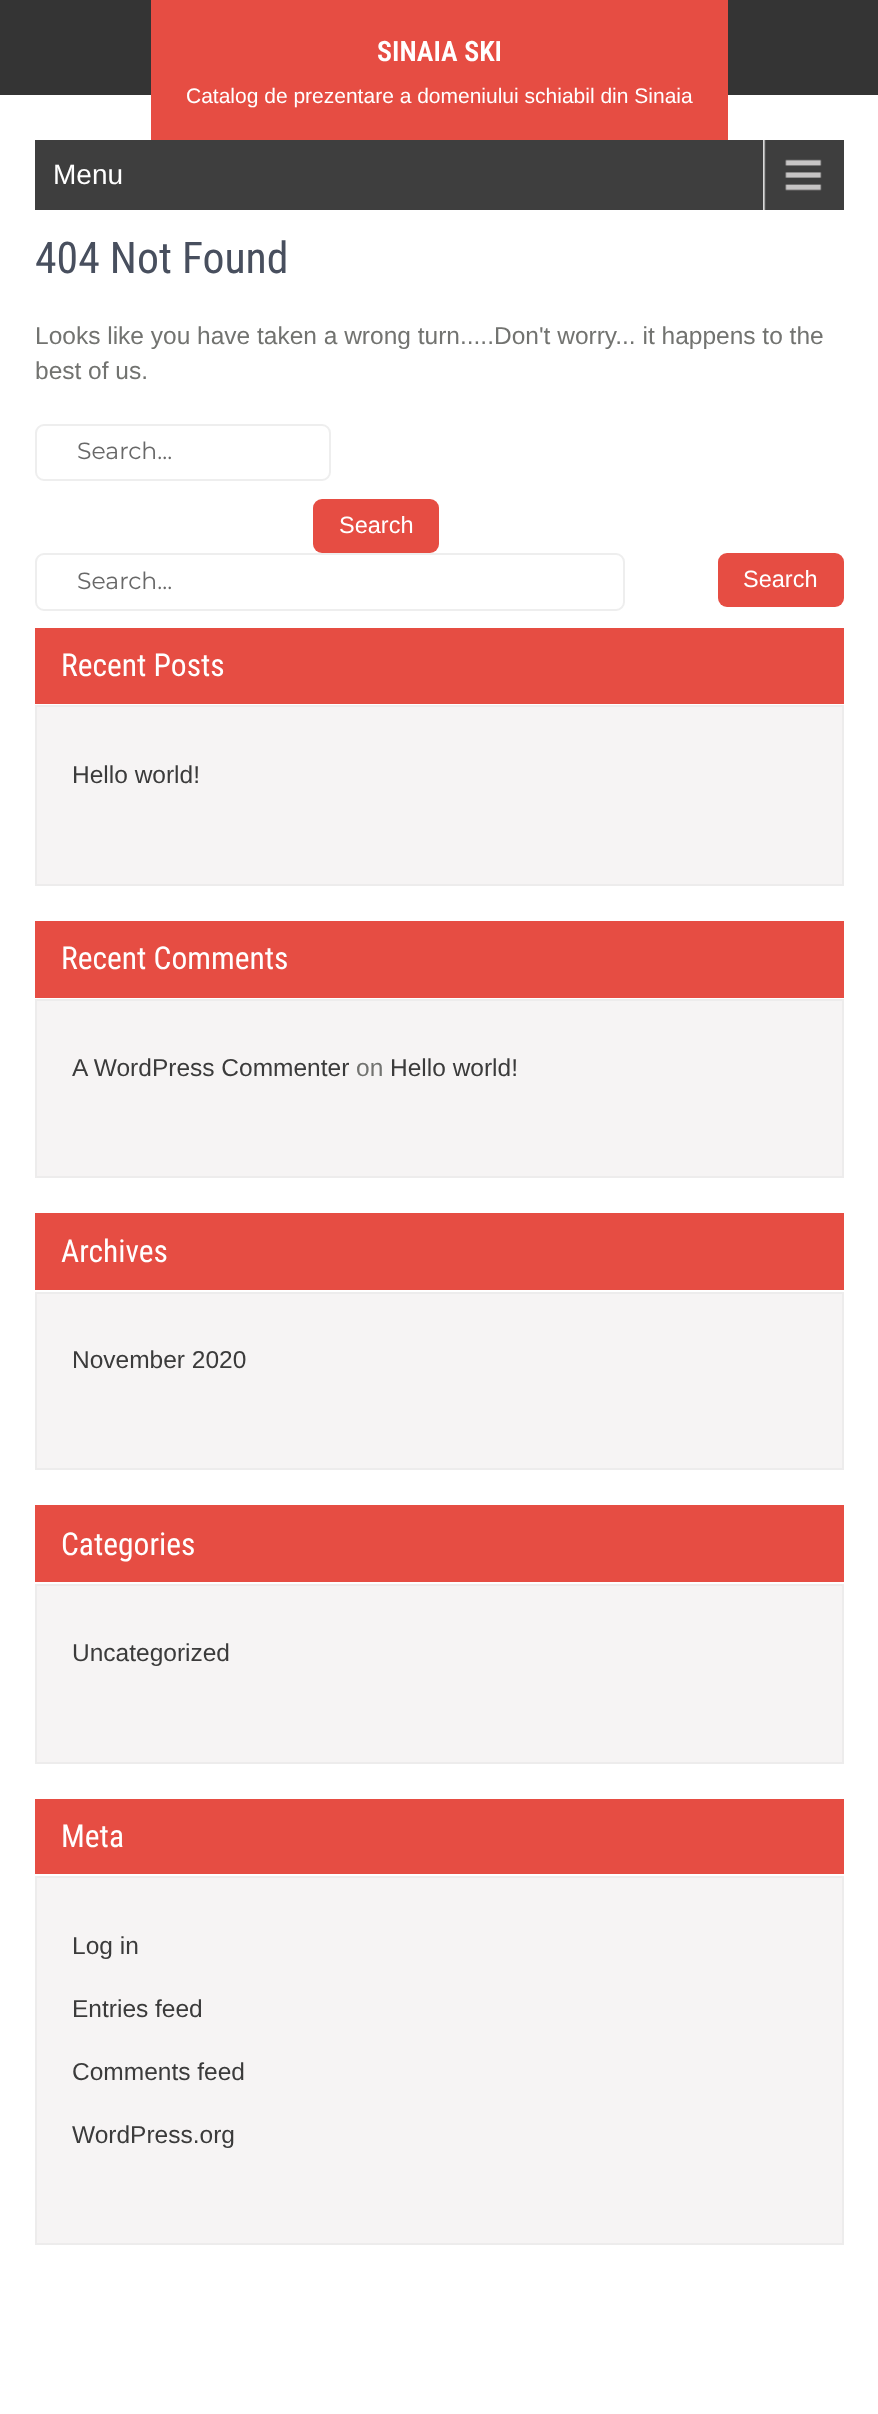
<!DOCTYPE html>
<meta charset="utf-8">
<style>body { margin: 0 } canvas { display: block }</style>
<canvas id="canvas" width="878" height="2414"></canvas>
<script type="module">
  const canvas = document.getElementById("canvas");
  const g = canvas.getContext("2d");
  g.miterLimit = 4;
  g.fontKerning = "normal";
  function drawText(s, x, y, [font, color]) {
    g.font = font;
    g.fillStyle = color;
    g.fillText(s, x, y);
  }
  function fillBox(x, y, w, h, color) {
    g.fillStyle = color;
    g.fillRect(x, y, w, h);
  }
  function fillRounded(x, y, w, h, r, color) {
    g.fillStyle = color;
    g.beginPath();
    g.roundRect(x, y, w, h, r);
    g.fill();
  }
  async function drawPicture(src, x, y, w, h) {
    const img = new Image();
    img.src = src;
    await img.decode();
    g.drawImage(img, x, y, w, h);
  }

  const s1 = ["600 28px Roboto Condensed", "#FFFFFF"];
  const s2 = ["21px Liberation Sans", "#FFFFFF"];
  const s3 = ["28px Liberation Sans", "#FFFFFF"];
  const s4 = ["43.75px Roboto Condensed", "#484F5E"];
  const s5 = ["24.5px Liberation Sans", "#727370"];
  const s6 = ["23.5px Montserrat", "#686868"];
  const s7 = ["23.5px Liberation Sans", "#FFFFFF"];
  const s8 = ["31.5px Roboto Condensed", "#FFFFFF"];
  const s9 = ["24.5px Liberation Sans", "#3B3B3B"];

  fillBox(0, 0, 878, 2414, "#FFFFFF");
  fillBox(0, 0, 878, 95, "#343434");
  fillBox(151, 0, 577, 140, "#E64D43");
  drawText("SINAIA SKI", 377, 61, s1);
  drawText("Catalog de prezentare a domeniului schiabil din Sinaia", 186, 103, s2);
  fillBox(35, 140, 809, 70, "#3E3E3E");
  await drawPicture("pic1.png", 763, 140, 59, 70);
  drawText("Menu", 53, 184, s3);
  drawText("404 Not Found", 35, 273, s4);
  drawText("Looks like you have taken a wrong turn.....Don't worry... it happens to the", 35, 344, s5);
  drawText("best of us.", 35, 379, s5);
  g.beginPath();
  g.roundRect(36, 425, 294, 55, 8);
  g.strokeStyle = "#EEEEEE";
  g.lineWidth = 2;
  g.stroke();
  drawText("Search...", 77, 459, s6);
  fillRounded(313, 499, 126, 54, 9, "#E64D43");
  drawText("Search", 339, 533, s7);
  g.beginPath();
  g.roundRect(36, 554, 588, 56, 8);
  g.stroke();
  drawText("Search...", 77, 589, s6);
  fillRounded(718, 553, 126, 54, 9, "#E64D43");
  drawText("Search", 743, 587, s7);
  fillBox(35, 628, 809, 76, "#E64D43");
  drawText("Recent Posts", 61, 676, s8);
  g.fillStyle = "#F6F4F4";
  g.beginPath();
  g.rect(36, 706, 807, 179);
  g.fill();
  g.strokeStyle = "#EDECEC";
  g.stroke();
  drawText("Hello world!", 72, 783, s9);
  fillBox(35, 921, 809, 77, "#E64D43");
  drawText("Recent Comments", 61, 969, s8);
  g.fillStyle = "#F6F4F4";
  g.beginPath();
  g.rect(36, 1000, 807, 177);
  g.fill();
  g.stroke();
  drawText("A WordPress Commenter", 72, 1076, s9);
  drawText("on", 356, 1076, s5);
  drawText("Hello world!", 390, 1076, s9);
  fillBox(35, 1213, 809, 77, "#E64D43");
  drawText("Archives", 61, 1262, s8);
  g.fillStyle = "#F6F4F4";
  g.beginPath();
  g.rect(36, 1293, 807, 176);
  g.fill();
  g.stroke();
  drawText("November 2020", 72, 1368, s9);
  fillBox(35, 1505, 809, 77, "#E64D43");
  drawText("Categories", 61, 1555, s8);
  g.fillStyle = "#F6F4F4";
  g.beginPath();
  g.rect(36, 1585, 807, 178);
  g.fill();
  g.stroke();
  drawText("Uncategorized", 72, 1661, s9);
  fillBox(35, 1799, 809, 75, "#E64D43");
  drawText("Meta", 61, 1847, s8);
  g.fillStyle = "#F6F4F4";
  g.beginPath();
  g.rect(36, 1877, 807, 367);
  g.fill();
  g.stroke();
  drawText("Log in", 72, 1954, s9);
  drawText("Entries feed", 72, 2017, s9);
  drawText("Comments feed", 72, 2080, s9);
  drawText("WordPress.org", 72, 2143, s9);
</script>
